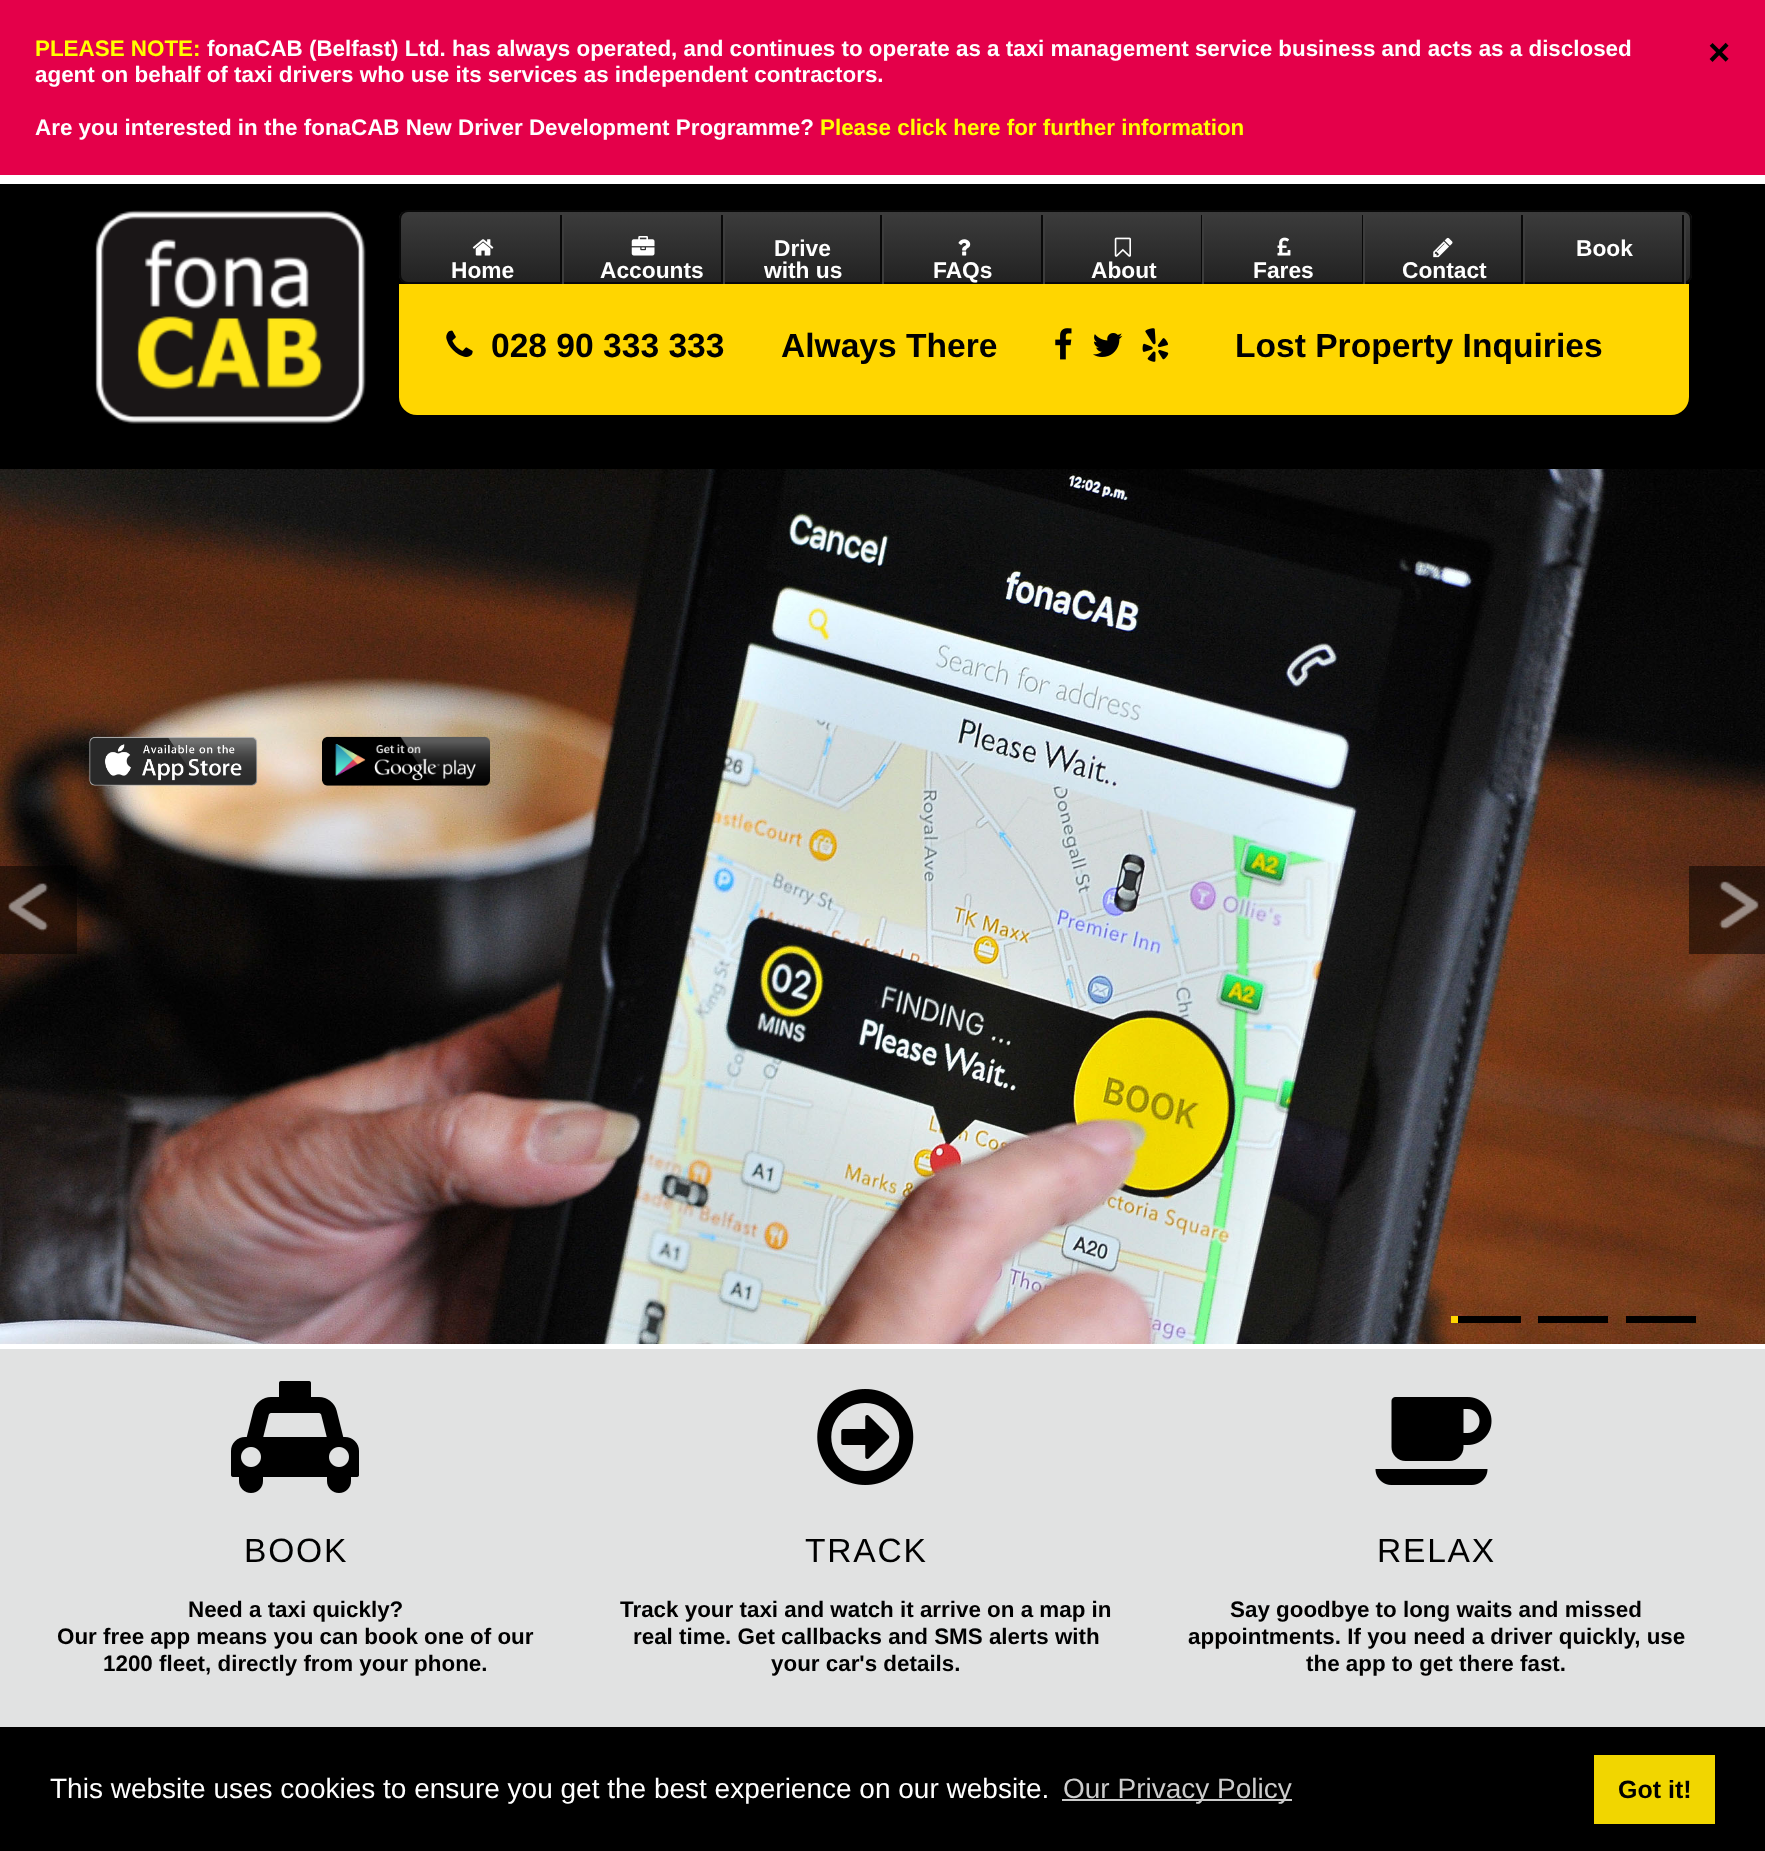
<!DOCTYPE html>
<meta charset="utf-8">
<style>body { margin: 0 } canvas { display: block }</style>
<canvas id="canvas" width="1765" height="1851"></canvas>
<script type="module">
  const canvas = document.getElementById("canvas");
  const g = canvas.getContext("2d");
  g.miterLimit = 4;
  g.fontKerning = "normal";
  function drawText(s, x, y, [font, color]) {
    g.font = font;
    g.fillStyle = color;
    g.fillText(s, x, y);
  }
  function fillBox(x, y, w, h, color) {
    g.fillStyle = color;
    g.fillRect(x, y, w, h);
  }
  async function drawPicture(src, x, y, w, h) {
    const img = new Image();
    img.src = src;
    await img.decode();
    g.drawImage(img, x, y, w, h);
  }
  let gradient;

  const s1 = ["bold 22.4px Liberation Sans", "#FFFFFF"];
  const s2 = ["bold 22.4px Liberation Sans", "#FFFF00"];
  const s3 = ["bold 38px Liberation Sans", "#000000"];
  const s4 = ["bold 22.75px Liberation Sans", "#FFFFFF"];
  const s5 = ["bold 33.6px Liberation Sans", "#000000"];
  const s6 = ["33.6px Liberation Sans", "#000000"];
  const s7 = ["bold 22.4px Liberation Sans", "#000000"];
  const s8 = ["28px Liberation Sans", "#FFFFFF"];
  const s9 = ["28px Liberation Sans", "#CCCCCC"];
  const s10 = ["bold 25px Liberation Sans", "#000000"];

  fillBox(0, 0, 1765, 1851, "#FFFFFF");
  fillBox(0, 0, 1765, 175, "#E4004A");
  drawText("fonaCAB (Belfast) Ltd. has always operated, and continues to operate as a taxi management service business and acts as a disclosed", 207, 56, s1);
  drawText("agent on behalf of taxi drivers who use its services as independent contractors.", 35, 82, s1);
  drawText("Are you interested in the fonaCAB New Driver Development Programme?", 35, 135, s1);
  drawText("Please click here for further information", 820, 135, s2);
  drawText("PLEASE NOTE:", 35, 56, s2);
  drawText("×", 1708, 65, s3);
  fillBox(0, 184, 1765, 285, "#000000");
  await drawPicture("pic1.png", 95, 210, 271, 214);
  g.save();
  g.beginPath();
  g.roundRect(399, 210, 1293, 74, 9);
  g.clip();
  gradient = g.createLinearGradient(1046, 212, 1046, 282);
  gradient.addColorStop(0, "#3C3C3C");
  gradient.addColorStop(1, "#222222");
  g.fillStyle = gradient;
  g.fillRect(399, 212, 1293, 70);
  g.restore();
  g.beginPath();
  g.roundRect(400, 211, 1291, 72, 8);
  g.strokeStyle = "#080808";
  g.lineWidth = 2;
  g.stroke();
  fillBox(880, 215, 2, 67, "#080808");
  drawText("Drive", 774, 256, s4);
  fillBox(882, 214, 2, 70, "#3C3C3C");
  drawText("with us", 764, 278, s4);
  fillBox(1682, 215, 2, 67, "#080808");
  drawText("Book", 1576, 256, s4);
  fillBox(1684, 214, 2, 70, "#3C3C3C");
  fillBox(560, 215, 2, 67, "#080808");
  await drawPicture("pic2.png", 472, 239, 22, 17);
  drawText("Home", 451, 278, s4);
  fillBox(562, 214, 2, 70, "#3C3C3C");
  fillBox(721, 215, 2, 67, "#080808");
  await drawPicture("pic3.png", 631, 236, 24, 20);
  drawText("Accounts", 600, 278, s4);
  fillBox(723, 214, 2, 70, "#3C3C3C");
  fillBox(1041, 215, 2, 67, "#080808");
  await drawPicture("pic4.png", 958, 239, 13, 17);
  drawText("FAQs", 933, 278, s4);
  fillBox(1043, 214, 2, 70, "#3C3C3C");
  fillBox(1201, 215, 1, 67, "#080808");
  await drawPicture("pic5.png", 1114, 237, 17, 20);
  drawText("About", 1091, 278, s4);
  fillBox(1202, 214, 2, 70, "#3C3C3C");
  fillBox(1362, 215, 1, 67, "#080808");
  await drawPicture("pic6.png", 1277, 237, 14, 19);
  drawText("Fares", 1253, 278, s4);
  fillBox(1363, 214, 2, 70, "#3C3C3C");
  fillBox(1521, 215, 2, 67, "#080808");
  await drawPicture("pic7.png", 1433, 237, 20, 21);
  drawText("Contact", 1402, 278, s4);
  fillBox(1523, 214, 2, 70, "#3C3C3C");
  g.fillStyle = "#FFD600";
  g.beginPath();
  g.roundRect(399, 284, 1290, 131, [0, 0, 18, 18]);
  g.fill();
  await drawPicture("pic8.png", 446, 330, 27, 27);
  drawText("028 90 333 333", 491, 357, s5);
  drawText("Always There", 781, 357, s5);
  await drawPicture("pic9.png", 1055, 328, 17, 32);
  await drawPicture("pic10.png", 1093, 333, 30, 24);
  await drawPicture("pic11.png", 1142, 328, 27, 34);
  drawText("Lost Property Inquiries", 1235, 357, s5);
  await drawPicture("pic12.png", 0, 469, 1765, 875);
  await drawPicture("pic13.png", 89, 736, 169, 50);
  await drawPicture("pic14.png", 322, 736, 168, 50);
  fillBox(0, 866, 77, 88, "rgba(0, 0, 0, 0.5)");
  await drawPicture("pic15.png", 8, 883, 41, 49);
  fillBox(1689, 866, 76, 88, "rgba(0, 0, 0, 0.5)");
  await drawPicture("pic16.png", 1719, 881, 40, 49);
  fillBox(1451, 1316, 70, 7, "#000000");
  fillBox(1451, 1316, 7, 7, "#FFD600");
  fillBox(1538, 1316, 70, 7, "#000000");
  fillBox(1626, 1316, 70, 7, "#000000");
  fillBox(0, 1349, 1765, 378, "#E1E2E2");
  await drawPicture("pic17.png", 231, 1381, 128, 112);
  g.letterSpacing = "1.75px";
  drawText("BOOK", 244, 1562, s6);
  g.letterSpacing = "0px";
  drawText("Need a taxi quickly?", 188, 1617, s7);
  drawText("Our free app means you can book one of our", 57, 1644, s7);
  drawText("1200 fleet, directly from your phone.", 103, 1671, s7);
  await drawPicture("pic18.png", 817, 1389, 97, 96);
  g.letterSpacing = "1.75px";
  drawText("TRACK", 805, 1562, s6);
  g.letterSpacing = "0px";
  drawText("Track your taxi and watch it arrive on a map in", 620, 1617, s7);
  drawText("real time. Get callbacks and SMS alerts with", 633, 1644, s7);
  drawText("your car's details.", 771, 1671, s7);
  await drawPicture("pic19.png", 1375, 1397, 117, 88);
  g.letterSpacing = "1.75px";
  drawText("RELAX", 1377, 1562, s6);
  g.letterSpacing = "0px";
  drawText("Say goodbye to long waits and missed", 1230, 1617, s7);
  drawText("appointments. If you need a driver quickly, use", 1188, 1644, s7);
  drawText("the app to get there fast.", 1306, 1671, s7);
  fillBox(0, 1727, 1765, 124, "#000000");
  drawText("This website uses cookies to ensure you get the best experience on our website.", 50, 1798, s8);
  fillBox(1062, 1799, 230, 2, "#CCCCCC");
  drawText("Our Privacy Policy", 1063, 1798, s9);
  fillBox(1594, 1755, 121, 69, "#F1D600");
  drawText("Got it!", 1618, 1798, s10);
</script>
